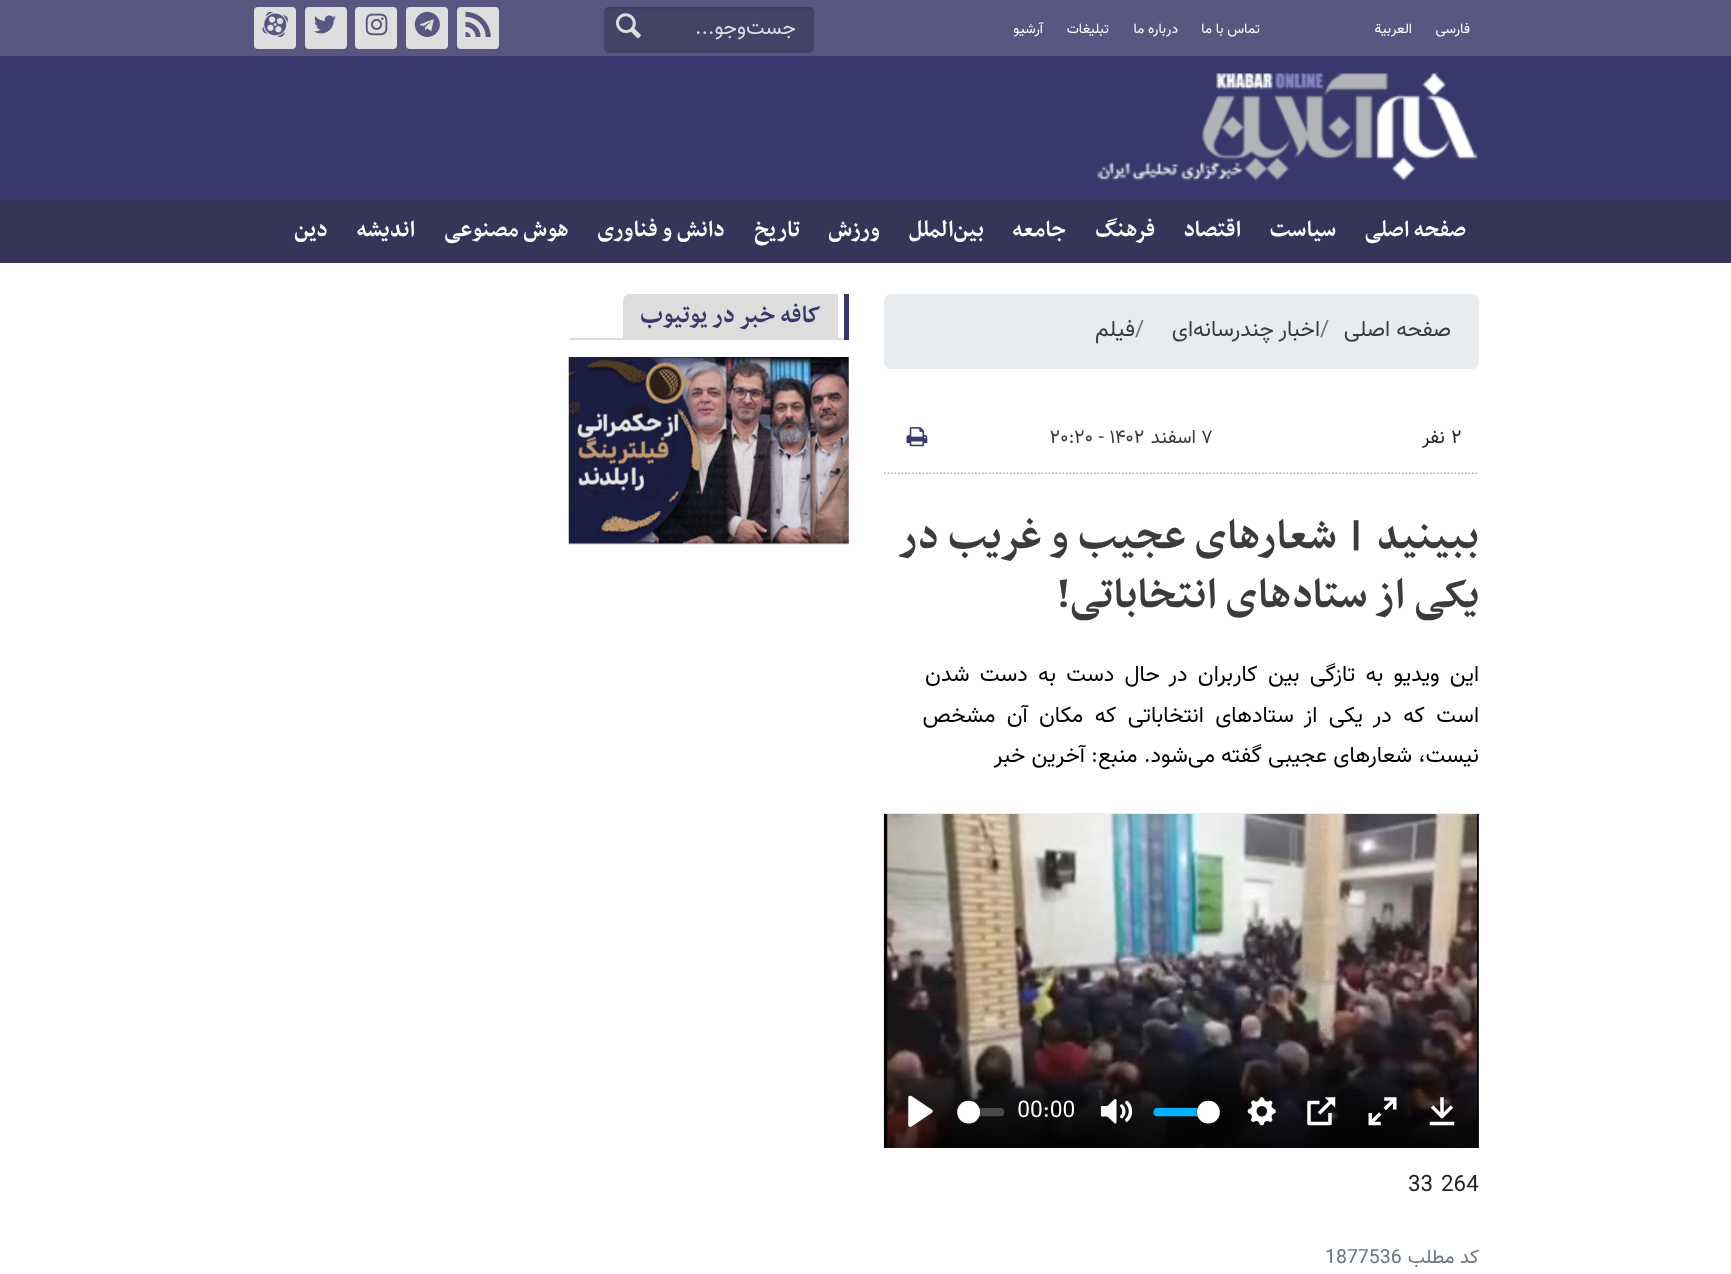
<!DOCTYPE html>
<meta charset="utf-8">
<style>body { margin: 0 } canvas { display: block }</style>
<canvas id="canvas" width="1731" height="1274"></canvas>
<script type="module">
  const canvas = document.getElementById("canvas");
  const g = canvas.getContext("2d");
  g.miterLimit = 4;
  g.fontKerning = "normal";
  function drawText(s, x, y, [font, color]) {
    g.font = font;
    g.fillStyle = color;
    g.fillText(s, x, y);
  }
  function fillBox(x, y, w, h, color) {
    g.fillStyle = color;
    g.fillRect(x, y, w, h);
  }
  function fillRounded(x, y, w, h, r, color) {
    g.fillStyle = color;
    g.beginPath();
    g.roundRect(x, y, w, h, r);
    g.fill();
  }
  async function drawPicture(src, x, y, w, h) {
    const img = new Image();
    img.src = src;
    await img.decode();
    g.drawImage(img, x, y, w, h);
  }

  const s1 = ["14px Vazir", "#FFFFFF"];
  const s2 = ["21px Vazir", "#DDDDDD"];
  const s3 = ["bold 26.25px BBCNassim", "#FFFFFF"];
  const s4 = ["22.4px Vazir", "#3B3B3B"];
  const s5 = ["22.4px Vazir", "#6C757D"];
  const s6 = ["19.5px Vazir", "#212529"];
  const s7 = ["19.5px Vazir", "#3B3B3B"];
  const s8 = ["bold 49px BBCNassim", "#3B3B3B"];
  const s9 = ["22.4px Vazir", "#000000"];
  const s10 = ["22.4px Vazir", "#212529"];
  const s11 = ["19.5px Vazir", "#6C757D"];
  const s12 = ["bold 28px BBCNassim", "#38386C"];

  fillBox(0, 0, 1731, 1274, "#FFFFFF");
  fillBox(0, 56, 1731, 144, "#38386C");
  fillBox(0, 0, 1731, 56, "#595782");
  g.direction = "rtl";
  drawText("فارسی", 1470, 33, s1);
  drawText("العربية", 1412, 33, s1);
  drawText("تماس با ما", 1260, 33, s1);
  drawText("درباره ما", 1178, 33, s1);
  drawText("تبلیغات", 1109, 33, s1);
  drawText("آرشیو", 1043, 33, s1);
  fillRounded(604, 7, 210, 46, 5, "#444367");
  g.fillStyle = "rgba(0, 0, 0, 0.07)";
  g.beginPath();
  g.moveTo(609, 9);
  g.lineTo(808, 9);
  g.bezierCurveTo(811, 9, 814, 11, 814, 14);
  g.lineTo(814, 12);
  g.bezierCurveTo(814, 9, 812, 7, 809, 7);
  g.lineTo(609, 7);
  g.bezierCurveTo(606, 7, 604, 9, 604, 12);
  g.lineTo(604, 14);
  g.bezierCurveTo(604, 11, 606, 9, 609, 9);
  g.closePath();
  g.fill();
  drawText("جست‌وجو...", 796, 34, s2);
  await drawPicture("pic1.png", 616, 13, 25, 26);
  fillRounded(457, 7, 42, 42, 4, "#DEDEDE");
  await drawPicture("pic2.png", 465, 11, 26, 26);
  fillRounded(406, 7, 42, 42, 4, "#DEDEDE");
  await drawPicture("pic3.png", 414, 11, 26, 26);
  fillRounded(355, 7, 42, 42, 4, "#DEDEDE");
  await drawPicture("pic4.png", 365, 13, 23, 23);
  fillRounded(305, 7, 42, 42, 4, "#DEDEDE");
  await drawPicture("pic5.png", 314, 15, 22, 19);
  fillRounded(254, 7, 42, 42, 4, "#DEDEDE");
  await drawPicture("pic6.png", 262, 11, 26, 26);
  await drawPicture("pic7.png", 1096, 73, 382, 108);
  fillBox(0, 200, 1731, 63, "#363559");
  drawText("صفحه اصلی", 1466, 236, s3);
  drawText("سیاست", 1336, 236, s3);
  drawText("اقتصاد", 1241, 236, s3);
  drawText("فرهنگ", 1155, 236, s3);
  drawText("جامعه", 1066, 236, s3);
  drawText("بین‌الملل", 984, 236, s3);
  drawText("ورزش", 880, 236, s3);
  drawText("تاریخ", 800, 236, s3);
  drawText("دانش و فناوری", 725, 236, s3);
  drawText("هوش مصنوعی", 569, 236, s3);
  drawText("اندیشه", 415, 236, s3);
  drawText("دین", 328, 236, s3);
  fillRounded(884, 294, 595, 75, 7, "#E9ECEF");
  drawText("صفحه اصلی", 1451, 336, s4);
  g.direction = "ltr";
  drawText("/", 1320, 336, s5);
  g.direction = "rtl";
  drawText("اخبار چندرسانه‌ای", 1320, 336, s4);
  g.direction = "ltr";
  drawText("/", 1135, 336, s5);
  g.direction = "rtl";
  drawText("فیلم", 1135, 336, s4);
  g.direction = "ltr";
  drawText("۲", 1451, 443, s6);
  g.direction = "rtl";
  drawText("نفر", 1445, 443, s6);
  g.direction = "ltr";
  drawText("۷", 1201, 443, s7);
  g.direction = "rtl";
  drawText("اسفند", 1196, 443, s7);
  g.direction = "ltr";
  drawText("۲۰:۲۰ - ۱۴۰۲", 1050, 443, s7);
  await drawPicture("pic8.png", 906, 427, 22, 20);
  g.save();
  g.beginPath();
  g.rect(884, 404, 595, 70);
  g.clip();
  g.beginPath();
  g.moveTo(884, 473.5);
  g.lineTo(1479, 473.5);
  g.strokeStyle = "#ADB5BD";
  g.lineWidth = 1.8;
  g.setLineDash([1.75, 1.75]);
  g.stroke();
  g.restore();
  g.direction = "rtl";
  drawText("ببینید | شعارهای عجیب و غریب در", 1479, 548, s8);
  drawText("یکی از ستادهای انتخاباتی!", 1479, 607, s8);
  g.wordSpacing = "4.1px";
  drawText("این ویدیو به تازگی بین کاربران در حال دست به دست شدن", 1479, 681, s9);
  g.wordSpacing = "5.25px";
  drawText("است که در یکی از ستادهای انتخاباتی که مکان آن مشخص", 1479, 722, s9);
  g.wordSpacing = "0px";
  drawText("نیست، شعارهای عجیبی گفته می‌شود. منبع: آخرین خبر", 1479, 762, s9);
  await drawPicture("pic9.png", 883, 813, 596, 335);
  g.direction = "ltr";
  drawText("264", 1441, 1191, s10);
  drawText("33", 1408, 1191, s10);
  g.direction = "rtl";
  drawText("کد مطلب", 1479, 1263, s11);
  g.direction = "ltr";
  drawText("1877536", 1325, 1263, s11);
  fillBox(569, 338, 280, 2, "#DDDDDD");
  g.beginPath();
  g.roundRect(623, 294, 215, 46, [7, 0, 0, 0]);
  g.fill();
  fillBox(844, 294, 5, 46, "#38386C");
  g.direction = "rtl";
  drawText("کافه خبر در یوتیوب", 821, 322, s12);
  await drawPicture("pic10.png", 568, 357, 281, 188);
</script>
